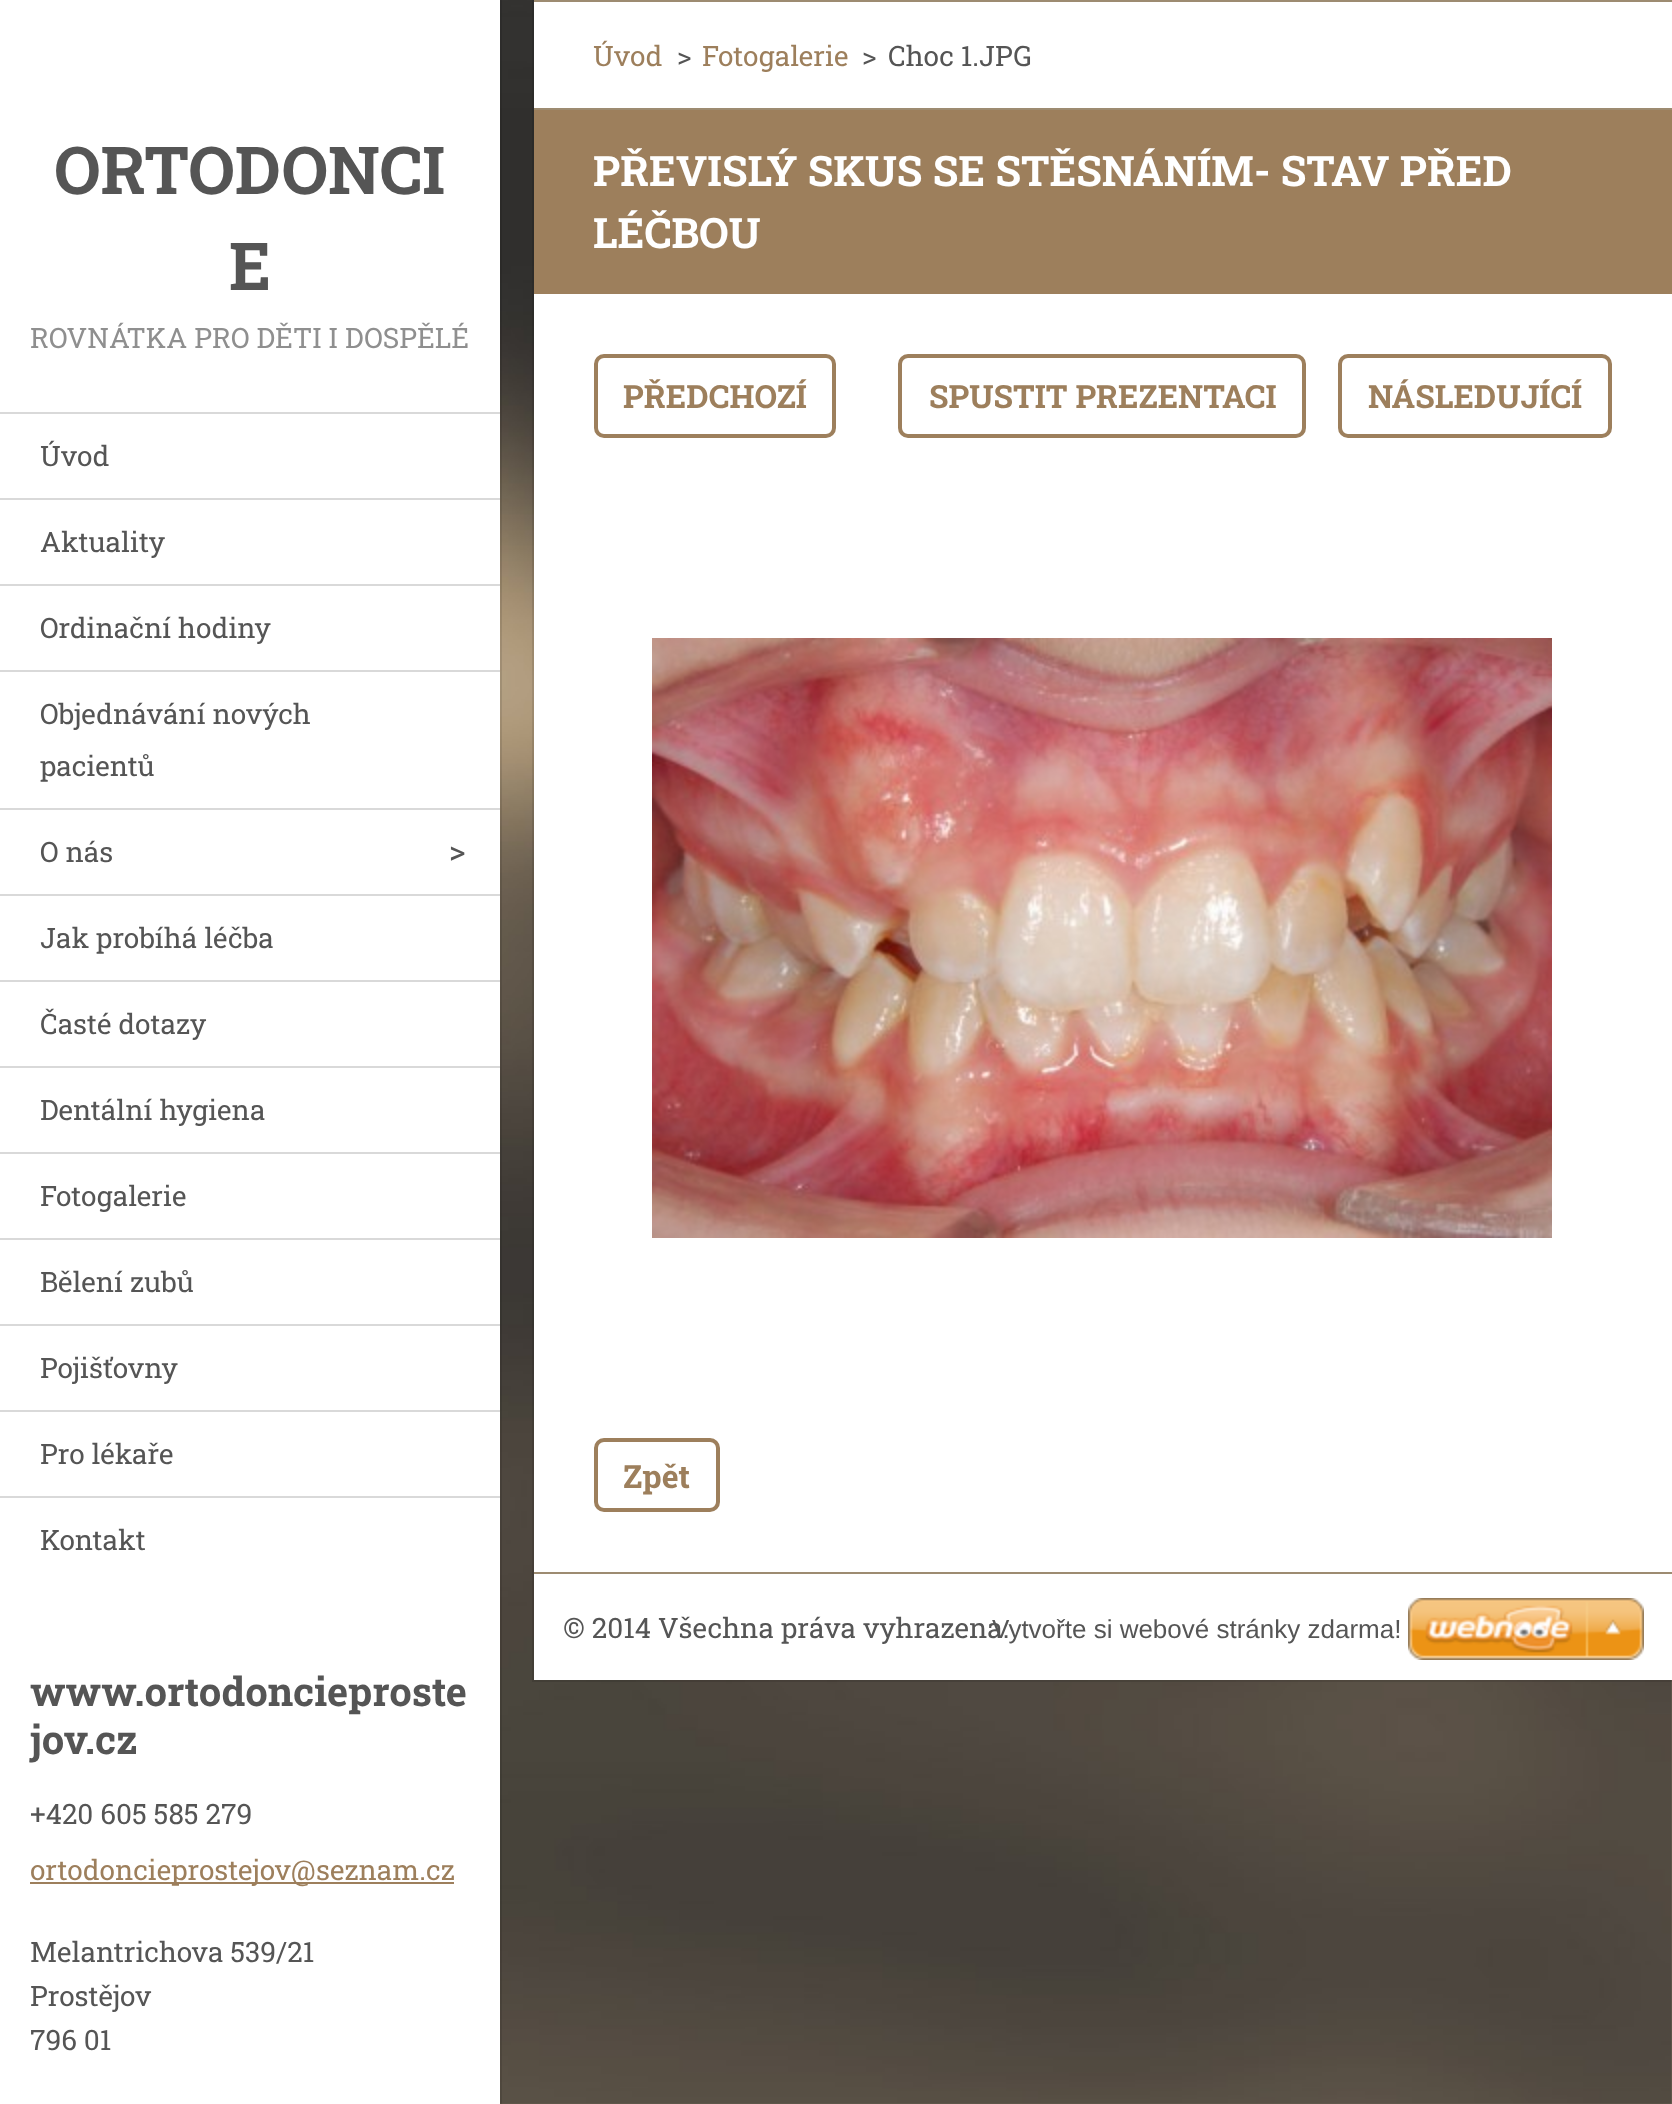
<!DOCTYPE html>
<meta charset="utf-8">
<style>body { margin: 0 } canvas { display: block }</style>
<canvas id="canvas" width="1672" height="2104"></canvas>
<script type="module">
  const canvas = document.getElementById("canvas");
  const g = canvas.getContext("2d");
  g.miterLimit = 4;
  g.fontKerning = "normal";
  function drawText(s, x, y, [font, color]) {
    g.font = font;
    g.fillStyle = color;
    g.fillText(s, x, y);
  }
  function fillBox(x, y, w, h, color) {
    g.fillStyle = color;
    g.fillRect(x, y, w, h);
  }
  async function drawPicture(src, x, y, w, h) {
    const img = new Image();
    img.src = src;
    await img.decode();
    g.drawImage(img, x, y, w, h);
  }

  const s1 = ["bold 66px Roboto Slab", "#555555"];
  const s2 = ["28px Roboto Slab", "#8F8F8F"];
  const s3 = ["28px Roboto Slab", "#555555"];
  const s4 = ["32px Roboto Slab", "#555555"];
  const s5 = ["bold 40px Roboto Slab", "#555555"];
  const s6 = ["28px Roboto Slab", "#9D7F5C"];
  const s7 = ["bold 42px Roboto Slab", "#FFFFFF"];
  const s8 = ["bold 32px Roboto Slab", "#9D7F5C"];
  const s9 = ["26px Liberation Sans", "#555555"];

  fillBox(0, 0, 1672, 2104, "#7D6F5B");
  await drawPicture("pic1.png", 500, 0, 1172, 2104);
  fillBox(0, 0, 500, 2104, "#FFFFFF");
  g.strokeStyle = "rgba(0, 0, 0, 0.1)";
  g.lineWidth = 2;
  g.strokeRect(-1, -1, 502, 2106);
  drawText("ORTODONCI", 54, 194, s1);
  drawText("E", 229, 290, s1);
  drawText("ROVNÁTKA PRO DĚTI I DOSPĚLÉ", 30, 348, s2);
  fillBox(0, 412, 500, 2, "#D9D9D9");
  drawText("Úvod", 40, 466, s3);
  fillBox(0, 498, 500, 2, "#D9D9D9");
  drawText("Aktuality", 40, 552, s3);
  fillBox(0, 584, 500, 2, "#D9D9D9");
  drawText("Ordinační hodiny", 40, 638, s3);
  fillBox(0, 670, 500, 2, "#D9D9D9");
  drawText("Objednávání nových", 40, 724, s3);
  drawText("pacientů", 40, 776, s3);
  fillBox(0, 808, 500, 2, "#D9D9D9");
  drawText("O nás", 40, 862, s3);
  drawText(">", 449, 862, s4);
  fillBox(0, 894, 500, 2, "#D9D9D9");
  drawText("Jak probíhá léčba", 40, 948, s3);
  fillBox(0, 980, 500, 2, "#D9D9D9");
  drawText("Časté dotazy", 40, 1034, s3);
  fillBox(0, 1066, 500, 2, "#D9D9D9");
  drawText("Dentální hygiena", 40, 1120, s3);
  fillBox(0, 1152, 500, 2, "#D9D9D9");
  drawText("Fotogalerie", 40, 1206, s3);
  fillBox(0, 1238, 500, 2, "#D9D9D9");
  drawText("Bělení zubů", 40, 1292, s3);
  fillBox(0, 1324, 500, 2, "#D9D9D9");
  drawText("Pojišťovny", 40, 1378, s3);
  fillBox(0, 1410, 500, 2, "#D9D9D9");
  drawText("Pro lékaře", 40, 1464, s3);
  fillBox(0, 1496, 500, 2, "#D9D9D9");
  drawText("Kontakt", 40, 1550, s3);
  drawText("www.ortodoncieproste", 30, 1706, s5);
  drawText("jov.cz", 30, 1754, s5);
  drawText("+420 605 585 279", 30, 1824, s3);
  fillBox(30, 1882, 424, 2, "#9D7F5C");
  drawText("ortodoncieprostejov@seznam.cz", 30, 1880, s6);
  drawText("Melantrichova 539/21", 30, 1962, s3);
  drawText("Prostějov", 30, 2006, s3);
  drawText("796 01", 30, 2050, s3);
  fillBox(534, 2, 1138, 106, "#FFFFFF");
  fillBox(534, 0, 1138, 2, "#9D8B71");
  g.strokeRect(533, -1, 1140, 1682);
  drawText("Úvod", 593, 66, s6);
  drawText(">", 677, 66, s3);
  drawText("Fotogalerie", 702, 66, s6);
  drawText(">", 862, 66, s3);
  drawText("Choc 1.JPG", 888, 66, s3);
  fillBox(534, 108, 1138, 2, "#9D8B71");
  fillBox(534, 110, 1138, 184, "#9D7F5C");
  drawText("PŘEVISLÝ SKUS SE STĚSNÁNÍM- STAV PŘED", 593, 186, s7);
  drawText("LÉČBOU", 593, 248, s7);
  fillBox(534, 294, 1138, 1278, "#FFFFFF");
  g.beginPath();
  g.roundRect(596, 356, 238, 80, 8);
  g.strokeStyle = "#9D7F5C";
  g.lineWidth = 4;
  g.stroke();
  drawText("PŘEDCHOZÍ", 623, 408, s8);
  g.beginPath();
  g.roundRect(900, 356, 404, 80, 8);
  g.stroke();
  drawText("SPUSTIT PREZENTACI", 929, 408, s8);
  g.beginPath();
  g.roundRect(1340, 356, 270, 80, 8);
  g.stroke();
  drawText("NÁSLEDUJÍCÍ", 1368, 408, s8);
  await drawPicture("pic2.png", 652, 638, 900, 600);
  g.beginPath();
  g.roundRect(596, 1440, 122, 70, 8);
  g.stroke();
  drawText("Zpět", 623, 1488, s8);
  fillBox(534, 1574, 1138, 106, "#FFFFFF");
  fillBox(534, 1572, 1138, 2, "#9D8B71");
  drawText("© 2014 Všechna práva vyhrazena.", 563, 1638, s3);
  drawText("Vytvořte si webové stránky zdarma!", 992, 1638, s9);
  await drawPicture("pic3.png", 1408, 1598, 236, 62);
</script>
